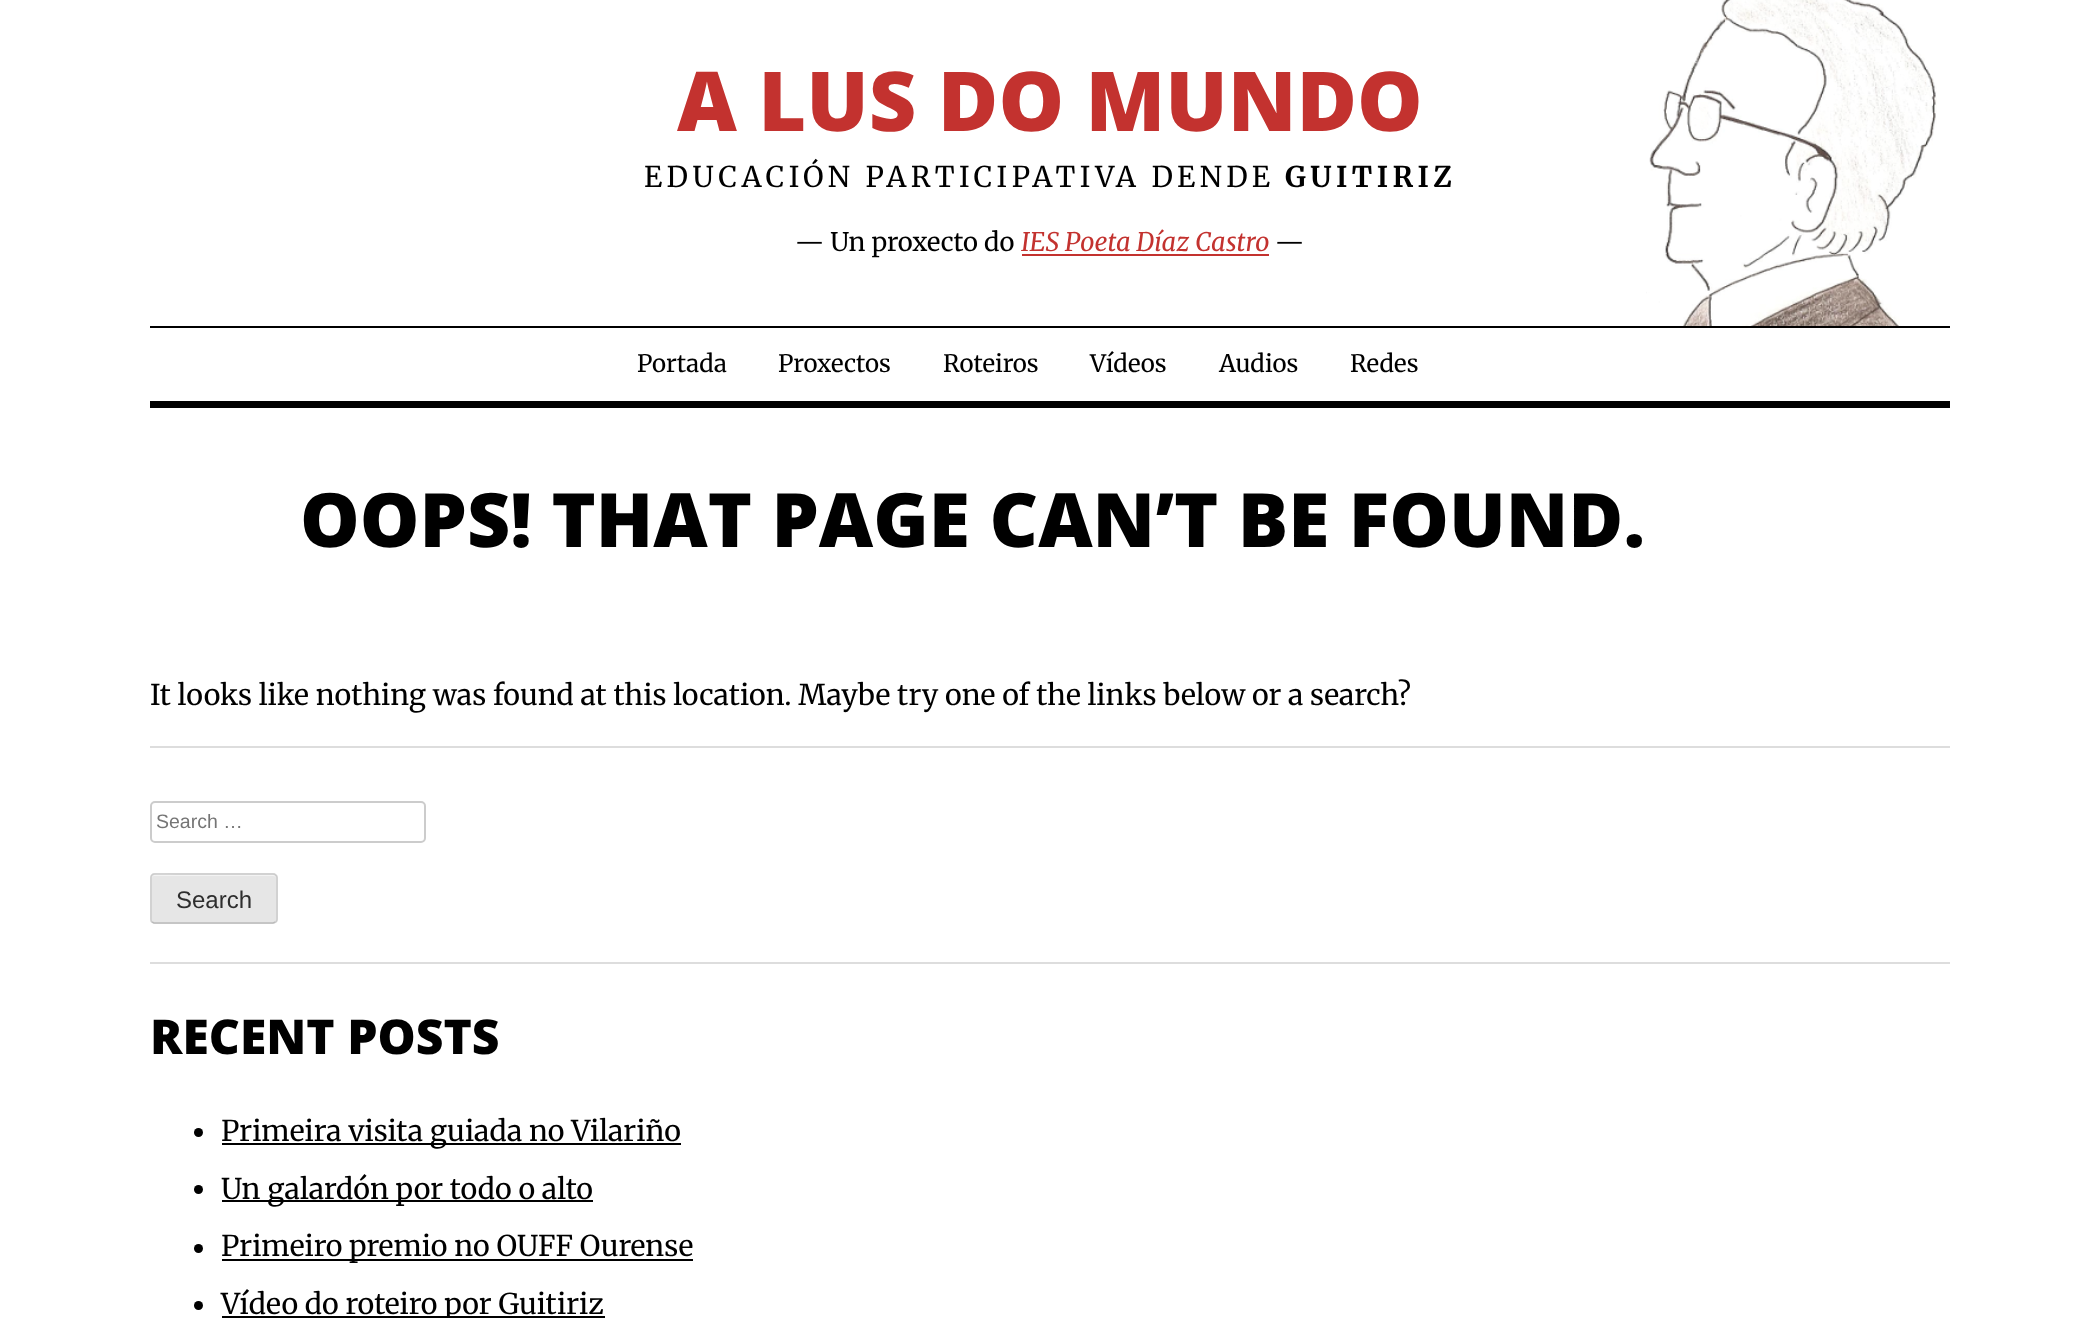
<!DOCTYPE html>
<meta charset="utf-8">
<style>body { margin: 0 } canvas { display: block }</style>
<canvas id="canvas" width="2099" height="1318"></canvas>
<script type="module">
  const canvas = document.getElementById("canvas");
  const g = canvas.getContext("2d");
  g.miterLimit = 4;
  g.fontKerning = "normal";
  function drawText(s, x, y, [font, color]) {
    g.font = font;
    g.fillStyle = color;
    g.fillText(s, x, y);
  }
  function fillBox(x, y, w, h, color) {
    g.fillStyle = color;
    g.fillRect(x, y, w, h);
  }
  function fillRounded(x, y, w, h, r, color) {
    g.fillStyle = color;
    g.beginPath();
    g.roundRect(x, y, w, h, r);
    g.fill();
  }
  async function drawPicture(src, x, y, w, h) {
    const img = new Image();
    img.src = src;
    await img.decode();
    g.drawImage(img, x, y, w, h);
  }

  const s1 = ["800 82.5px Open Sans", "#C3322F"];
  const s2 = ["28.5px Merriweather", "#000000"];
  const s3 = ["bold 28.5px Merriweather", "#000000"];
  const s4 = ["25.5px Merriweather", "#000000"];
  const s5 = ["italic 300 25.5px Merriweather", "#C3322F"];
  const s6 = ["24px Merriweather", "#000000"];
  const s7 = ["800 75px Open Sans", "#000000"];
  const s8 = ["19.5px Liberation Sans", "#757575"];
  const s9 = ["24px Liberation Sans", "#2E2E2E"];
  const s10 = ["800 48px Open Sans", "#000000"];

  fillBox(0, 0, 2099, 1318, "#FFFFFF");
  await drawPicture("pic1.png", 1646, 0, 291, 326);
  drawText("A LUS DO MUNDO", 677, 131, s1);
  g.letterSpacing = "4.5px";
  drawText("EDUCACIÓN PARTICIPATIVA DENDE", 644, 187, s2);
  drawText("GUITIRIZ", 1285, 187, s3);
  g.letterSpacing = "0px";
  drawText("— Un proxecto do", 795, 251, s4);
  drawText("IES Poeta Díaz Castro", 1021, 251, s5);
  fillBox(1022, 254, 247, 2, "#C3322F");
  drawText("—", 1275, 251, s4);
  fillBox(150, 326, 1800, 2, "#000000");
  fillBox(150, 401, 1800, 7, "#000000");
  drawText("Portada", 637, 372, s6);
  drawText("Proxectos", 778, 372, s6);
  drawText("Roteiros", 943, 372, s6);
  drawText("Vídeos", 1090, 372, s6);
  drawText("Audios", 1219, 372, s6);
  drawText("Redes", 1350, 372, s6);
  drawText("OOPS! THAT PAGE CAN’T BE FOUND.", 300, 547, s7);
  drawText("It looks like nothing was found at this location. Maybe try one of the links below or a search?", 150, 705, s2);
  fillBox(150, 746, 1800, 2, "#DDDDDD");
  fillBox(150, 962, 1800, 2, "#DDDDDD");
  g.beginPath();
  g.roundRect(151, 802, 274, 40, 4);
  g.strokeStyle = "#CCCCCC";
  g.lineWidth = 2;
  g.stroke();
  drawText("Search …", 156, 828, s8);
  fillRounded(150, 873, 128, 51, 5, "#E6E6E6");
  g.fillStyle = "#F3F3F3";
  g.beginPath();
  g.moveTo(154, 876);
  g.lineTo(273, 876);
  g.bezierCurveTo(275, 876, 276, 877, 276, 879);
  g.bezierCurveTo(276, 877, 275, 875, 273, 875);
  g.lineTo(175, 875);
  g.bezierCurveTo(174, 875, 152, 870, 152, 879);
  g.bezierCurveTo(152, 877, 153, 876, 154, 876);
  g.closePath();
  g.fill();
  g.beginPath();
  g.moveTo(275.5, 922);
  g.lineTo(273, 923);
  g.lineTo(154, 923);
  g.lineTo(152, 922);
  g.strokeStyle = "#BBBBBB";
  g.lineWidth = 1.5;
  g.stroke();
  g.beginPath();
  g.moveTo(152, 922);
  g.bezierCurveTo(151, 921.5, 151, 920.5, 151, 919.5);
  g.lineTo(151, 877.5);
  g.bezierCurveTo(151, 876.5, 151, 875.5, 152, 875);
  g.bezierCurveTo(152.5, 874, 153.5, 874, 154.5, 874);
  g.lineTo(273, 874);
  g.bezierCurveTo(274, 874, 275, 874, 275.5, 875);
  g.bezierCurveTo(276.5, 875.5, 277, 876.5, 277, 877.5);
  g.lineTo(277, 919.5);
  g.bezierCurveTo(277, 920.5, 276.5, 921.5, 275.5, 922);
  g.strokeStyle = "#CCCCCC";
  g.stroke();
  drawText("Search", 176, 908, s9);
  drawText("RECENT POSTS", 150, 1054, s10);
  g.beginPath();
  g.arc(198.5, 1132.5, 4.5, 0, Math.PI * 2);
  g.fill();
  fillBox(222, 1143, 459, 2, "#000000");
  drawText("Primeira visita guiada no Vilariño", 221, 1141, s2);
  g.beginPath();
  g.arc(198.5, 1189.5, 4.5, 0, Math.PI * 2);
  g.fill();
  fillBox(222, 1200, 371, 2, "#000000");
  drawText("Un galardón por todo o alto", 221, 1199, s2);
  g.beginPath();
  g.arc(198.5, 1248.5, 4.5, 0, Math.PI * 2);
  g.fill();
  fillBox(222, 1259, 471, 2, "#000000");
  drawText("Primeiro premio no OUFF Ourense", 221, 1256, s2);
  g.beginPath();
  g.arc(198.5, 1305.5, 4.5, 0, Math.PI * 2);
  g.fill();
  fillBox(222, 1316, 383, 2, "#000000");
  drawText("Vídeo do roteiro por Guitiriz", 221, 1314, s2);
</script>
